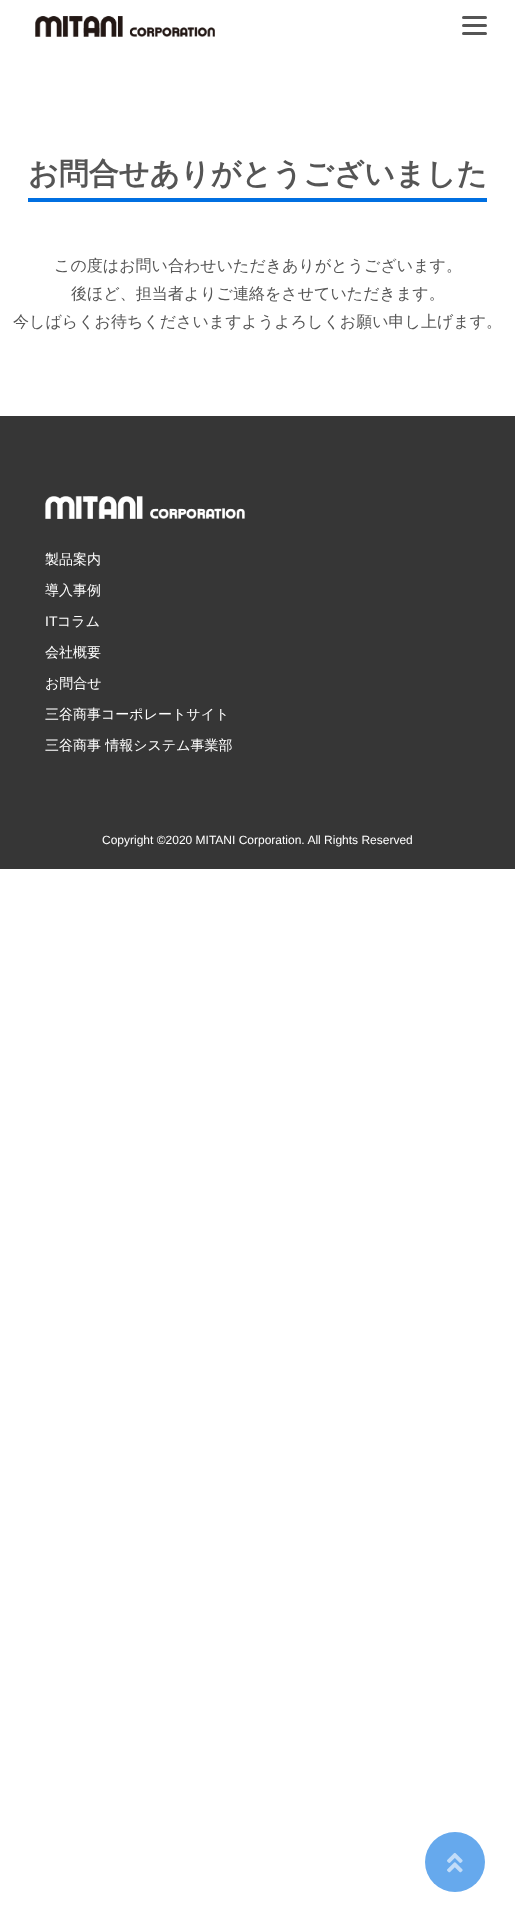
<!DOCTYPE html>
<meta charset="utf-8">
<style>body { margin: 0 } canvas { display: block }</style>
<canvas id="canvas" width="515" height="1922"></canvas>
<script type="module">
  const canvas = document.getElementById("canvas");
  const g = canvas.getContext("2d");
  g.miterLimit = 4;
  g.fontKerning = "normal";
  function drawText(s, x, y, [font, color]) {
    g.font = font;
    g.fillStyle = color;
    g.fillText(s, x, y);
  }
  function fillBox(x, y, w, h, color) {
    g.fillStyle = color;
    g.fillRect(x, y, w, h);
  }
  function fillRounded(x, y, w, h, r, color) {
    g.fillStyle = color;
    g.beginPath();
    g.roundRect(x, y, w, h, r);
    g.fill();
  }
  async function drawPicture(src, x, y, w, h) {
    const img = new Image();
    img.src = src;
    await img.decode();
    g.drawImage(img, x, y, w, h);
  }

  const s1 = ["bold 30px WenQuanYi Zen Hei", "#555555"];
  const s2 = ["500 16px WenQuanYi Zen Hei", "#555555"];
  const s3 = ["500 14px WenQuanYi Zen Hei", "#FFFFFF"];
  const s4 = ["14px Liberation Sans", "#FFFFFF"];
  const s5 = ["12px Liberation Sans", "#FFFFFF"];

  fillBox(0, 0, 515, 1922, "#FFFFFF");
  await drawPicture("pic1.png", 35, 16, 180, 21);
  fillRounded(462, 16, 25, 3, 1.5, "#555555");
  fillRounded(462, 24, 25, 3, 1.5, "#555555");
  fillRounded(462, 32, 25, 3, 1.5, "#555555");
  fillBox(28, 198, 459, 4, "#006FE1");
  drawText("お問合せありがとうございました", 28, 184, s1);
  drawText("この度はお問い合わせいただきありがとうございます。", 54, 271, s2);
  drawText("後ほど、担当者よりご連絡をさせていただきます。", 71, 299, s2);
  drawText("今しばらくお待ちくださいますようよろしくお願い申し上げます。", 13, 327, s2);
  fillBox(0, 416, 515, 453, "#363636");
  await drawPicture("pic2.png", 45, 496, 200, 23);
  drawText("製品案内", 45, 564, s3);
  drawText("導入事例", 45, 595, s3);
  drawText("IT", 45, 626, s4);
  drawText("コラム", 57, 626, s3);
  drawText("会社概要", 45, 657, s3);
  drawText("お問合せ", 45, 688, s3);
  drawText("三谷商事コーポレートサイト", 45, 719, s3);
  drawText("三谷商事 情報システム事業部", 45, 750, s3);
  drawText("Copyright ©2020 MITANI Corporation. All Rights Reserved", 102, 844, s5);
  g.fillStyle = "#66A9ED";
  g.beginPath();
  g.arc(455, 1862, 30, 0, Math.PI * 2);
  g.fill();
  await drawPicture("pic3.png", 447, 1853, 16, 20);
</script>
